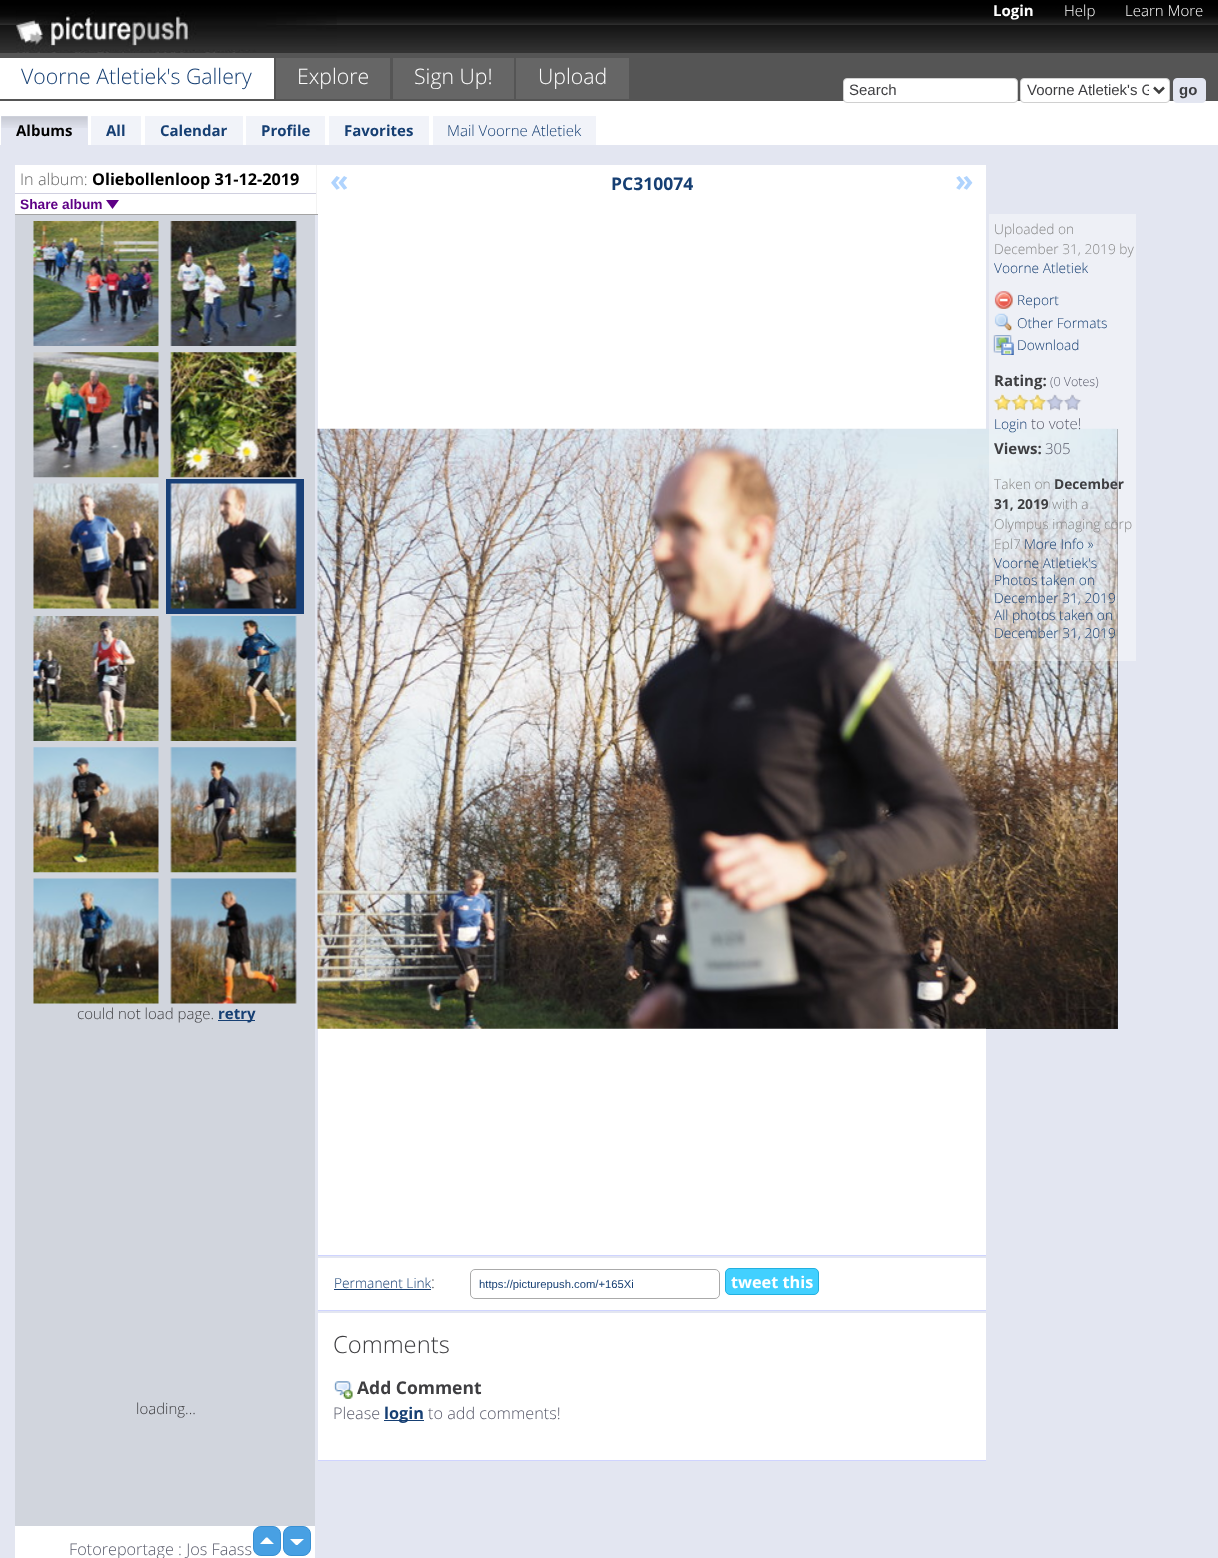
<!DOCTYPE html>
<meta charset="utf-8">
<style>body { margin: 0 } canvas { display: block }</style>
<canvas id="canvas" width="1218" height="1558"></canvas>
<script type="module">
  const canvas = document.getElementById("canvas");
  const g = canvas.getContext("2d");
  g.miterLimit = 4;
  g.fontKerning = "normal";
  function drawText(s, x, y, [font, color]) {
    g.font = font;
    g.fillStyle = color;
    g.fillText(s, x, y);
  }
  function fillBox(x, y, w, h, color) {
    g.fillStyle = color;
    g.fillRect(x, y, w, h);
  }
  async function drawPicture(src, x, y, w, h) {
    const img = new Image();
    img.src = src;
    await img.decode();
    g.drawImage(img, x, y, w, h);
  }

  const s1 = ["bold 15px Open Sans", "#FFFFFF"];
  const s2 = ["300 15px Open Sans", "#FFFFFF"];
  const s3 = ["300 21.25px Open Sans", "#163F73"];
  const s4 = ["300 21.25px Open Sans", "#FFFFFF"];
  const s5 = ["15px Liberation Sans", "#3E3E41"];
  const s6 = ["bold 15px Liberation Sans", "#3E3E41"];
  const s7 = ["bold 15px Open Sans", "#000000"];
  const s8 = ["bold 15px Open Sans", "#163F73"];
  const s9 = ["300 15px Open Sans", "#163F73"];
  const s10 = ["300 16.25px Open Sans", "#666666"];
  const s11 = ["bold 16.25px Open Sans", "#000000"];
  const s12 = ["bold 13.75px Liberation Sans", "#5E0085"];
  const s13 = ["300 15px Open Sans", "#3E3E41"];
  const s14 = ["300 16.25px Open Sans", "#5A5C6C"];
  const s15 = ["bold 30px Open Sans", "#B0D4FE"];
  const s16 = ["bold 17.5px Open Sans", "#163F73"];
  const s17 = ["300 13.75px Open Sans", "#888888"];
  const s18 = ["300 13.75px Open Sans", "#163F73"];
  const s19 = ["bold 15px Open Sans", "#3E3E41"];
  const s20 = ["300 12.5px Open Sans", "#5A5C6C"];
  const s21 = ["300 15px Open Sans", "#5A5C6C"];
  const s22 = ["bold 13.75px Open Sans", "#3E3E41"];
  const s23 = ["300 16.25px Open Sans", "#3E3E41"];
  const s24 = ["11.25px Liberation Sans", "#163F73"];
  const s25 = ["bold 16.25px Open Sans", "#FFFFFF"];
  const s26 = ["300 23.75px Open Sans", "#3E3E41"];
  const s27 = ["bold 17.5px Open Sans", "#3E3E41"];
  const s28 = ["bold 16.25px Open Sans", "#163F73"];

  fillBox(0, 0, 1218, 1558, "#E3E6F1");
  fillBox(986, 429, 132, 600, "#2D2E30");
  await drawPicture("pic1.png", 0, 0, 1218, 53);
  await drawPicture("pic2.png", 16, 10, 321, 43);
  drawText("Login", 993, 16, s1);
  drawText("Help", 1064, 16, s2);
  drawText("Learn More", 1125, 16, s2);
  fillBox(0, 53, 1218, 48, "#555555");
  fillBox(0, 58, 274, 41, "#FFFFFF");
  drawText("Voorne Atletiek's Gallery", 21, 84, s3);
  fillBox(276, 58, 114, 41, "#666666");
  drawText("Explore", 297, 84, s4);
  fillBox(393, 58, 121, 41, "#666666");
  drawText("Sign Up!", 414, 84, s4);
  fillBox(516, 58, 113, 41, "#666666");
  drawText("Upload", 538, 84, s4);
  fillBox(0, 101, 1218, 44, "#FFFFFF");
  g.beginPath();
  g.roundRect(843.5, 78.5, 174, 24, 3.5);
  g.fill();
  g.strokeStyle = "#D0D0D0";
  g.stroke();
  drawText("Search", 849, 95, s5);
  g.fillStyle = "#FFFFFF";
  g.beginPath();
  g.roundRect(1020.5, 78.5, 149, 24, 3.5);
  g.fill();
  g.stroke();
  g.beginPath();
  g.moveTo(1154, 87.5);
  g.lineTo(1159, 92.5);
  g.lineTo(1164, 87.5);
  g.strokeStyle = "#3E3E3E";
  g.lineWidth = 2.5;
  g.stroke();
  g.save();
  g.beginPath();
  g.rect(1026, 80, 123, 20);
  g.clip();
  drawText("Voorne Atletiek's G", 1027, 95, s5);
  g.restore();
  g.fillStyle = "#E3E6F1";
  g.beginPath();
  g.roundRect(1173.5, 78.5, 32, 24, 3.5);
  g.fill();
  g.strokeStyle = "#E3E6F1";
  g.lineWidth = 1;
  g.stroke();
  drawText("go", 1179, 95, s6);
  fillBox(1, 116, 87, 29, "#E3E6F1");
  await drawPicture("pic3.png", 1, 116, 87, 12);
  drawText("Albums", 16, 136, s7);
  fillBox(91, 116, 50, 29, "#F1F3F9");
  drawText("All", 106, 136, s8);
  fillBox(145, 116, 98, 29, "#F1F3F9");
  drawText("Calendar", 160, 136, s8);
  fillBox(246, 116, 79, 29, "#F1F3F9");
  drawText("Profile", 261, 136, s8);
  fillBox(329, 116, 100, 29, "#F1F3F9");
  drawText("Favorites", 344, 136, s8);
  fillBox(433, 116, 163, 29, "#F1F3F9");
  drawText("Mail Voorne Atletiek", 447, 136, s9);
  fillBox(15, 165, 303, 49, "#FFFFFF");
  fillBox(316, 165, 1, 50, "#F3F3F3");
  fillBox(15, 214, 303, 1, "#A4A4A4");
  drawText("In album:", 20, 185, s10);
  drawText("Oliebollenloop 31-12-2019", 92, 185, s11);
  fillBox(15, 193, 301, 1, "#D0D0E0");
  drawText("Share album", 20, 209, s12);
  g.beginPath();
  g.moveTo(106, 200);
  g.lineTo(119, 200);
  g.lineTo(112.5, 209);
  g.closePath();
  g.fill();
  fillBox(15, 215, 300, 1311, "#D1D5DD");
  await drawPicture("pic4.png", 33, 221, 126, 125);
  await drawPicture("pic5.png", 170, 221, 127, 125);
  await drawPicture("pic6.png", 33, 352, 126, 126);
  await drawPicture("pic7.png", 170, 352, 127, 126);
  await drawPicture("pic8.png", 33, 483, 126, 126);
  fillBox(166, 479, 138, 135, "#194077");
  await drawPicture("pic9.png", 170, 483, 127, 126);
  await drawPicture("pic10.png", 33, 616, 126, 125);
  await drawPicture("pic11.png", 170, 616, 127, 125);
  await drawPicture("pic12.png", 33, 747, 126, 126);
  await drawPicture("pic13.png", 170, 747, 127, 126);
  await drawPicture("pic14.png", 33, 878, 126, 126);
  await drawPicture("pic15.png", 170, 878, 127, 126);
  drawText("could not load page.", 77, 1019, s13);
  fillBox(218, 1020, 37, 1, "#163F73");
  drawText("retry", 218, 1019, s8);
  drawText("loading...", 136, 1414, s13);
  fillBox(15, 1526, 300, 32, "#FFFFFF");
  g.fillStyle = "#48A0E3";
  g.beginPath();
  g.roundRect(253.5, 1526.5, 27, 29, 7.5);
  g.fill();
  g.strokeStyle = "#3890D3";
  g.stroke();
  g.beginPath();
  g.roundRect(283.5, 1526.5, 27, 29, 7.5);
  g.fill();
  g.stroke();
  g.fillStyle = "#FFFFFF";
  g.beginPath();
  g.moveTo(274, 1544);
  g.lineTo(260, 1544);
  g.lineTo(266, 1537.5);
  g.lineTo(267.5, 1537.5);
  g.closePath();
  g.moveTo(290, 1539);
  g.lineTo(304, 1539);
  g.lineTo(297.5, 1545);
  g.lineTo(296, 1545);
  g.closePath();
  g.fill();
  drawText("Fotoreportage : Jos Faass", 69, 1555, s14);
  fillBox(318, 165, 668, 1090, "#FFFFFF");
  fillBox(318, 1255, 668, 1, "#CFD4FF");
  drawText("«", 330, 191, s15);
  drawText("PC310074", 611, 190, s16);
  drawText("»", 955, 191, s15);
  await drawPicture("pic24.png", 317, 428, 801, 601);
  fillBox(989, 214, 147, 447, "rgba(255, 255, 255, 0.4)");
  drawText("Uploaded on", 994, 234, s17);
  drawText("December 31, 2019 by", 994, 254, s17);
  drawText("Voorne Atletiek", 994, 273, s18);
  await drawPicture("pic16.png", 994, 291, 19, 18);
  drawText("Report", 1017, 305, s18);
  await drawPicture("pic17.png", 994, 313, 18, 19);
  drawText("Other Formats", 1017, 328, s18);
  await drawPicture("pic18.png", 993, 335, 21, 20);
  drawText("Download", 1017, 350, s18);
  drawText("Rating:", 994, 386, s19);
  drawText("(0 Votes)", 1050, 386, s20);
  await drawPicture("pic19.png", 993, 393, 19, 18);
  await drawPicture("pic20.png", 1011, 393, 18, 18);
  await drawPicture("pic21.png", 1028, 393, 19, 18);
  await drawPicture("pic22.png", 1046, 394, 18, 17);
  await drawPicture("pic23.png", 1064, 394, 18, 17);
  drawText("Login", 994, 429, s18);
  drawText("to vote!", 1031, 429, s21);
  drawText("Views:", 994, 454, s19);
  drawText("305", 1045, 454, s21);
  drawText("Taken on", 994, 489, s17);
  drawText("December", 1054, 489, s22);
  drawText("31, 2019", 994, 509, s22);
  drawText("with a", 1052, 509, s17);
  drawText("Olympus imaging corp", 994, 529, s17);
  drawText("Epl7", 994, 549, s17);
  drawText("More Info »", 1024, 549, s18);
  drawText("Voorne Atletiek's", 994, 568, s18);
  drawText("Photos taken on", 994, 585, s18);
  drawText("December 31, 2019", 994, 603, s18);
  drawText("All photos taken on", 994, 620, s18);
  drawText("December 31, 2019", 994, 638, s18);
  fillBox(318, 1258, 668, 52, "#FFFFFF");
  fillBox(318, 1310, 668, 1, "#CFD4FF");
  drawText("Permanent Link", 334, 1288, s18);
  fillBox(334, 1289, 97, 1, "#163F73");
  drawText(":", 431, 1288, s23);
  g.beginPath();
  g.roundRect(470.5, 1269.5, 249, 29, 4.5);
  g.strokeStyle = "#AAAAAA";
  g.stroke();
  g.save();
  g.beginPath();
  g.rect(479, 1278, 232, 12);
  g.clip();
  drawText("https://picturepush.com/+165Xi", 479, 1288, s24);
  g.restore();
  g.fillStyle = "#42D0FF";
  g.beginPath();
  g.roundRect(725.5, 1268.5, 93, 26, 4.5);
  g.fill();
  g.strokeStyle = "#22B0DF";
  g.stroke();
  drawText("tweet this", 731, 1288, s25);
  fillBox(318, 1313, 668, 147, "#FFFFFF");
  fillBox(318, 1460, 668, 1, "#CFD4FF");
  drawText("Comments", 333, 1353, s26);
  await drawPicture("pic25.png", 333, 1381, 20, 18);
  drawText("Add Comment", 357, 1394, s27);
  drawText("Please", 333, 1419, s14);
  fillBox(384, 1420, 40, 1, "#163F73");
  drawText("login", 384, 1419, s28);
  drawText("to add comments!", 428, 1419, s14);
</script>
